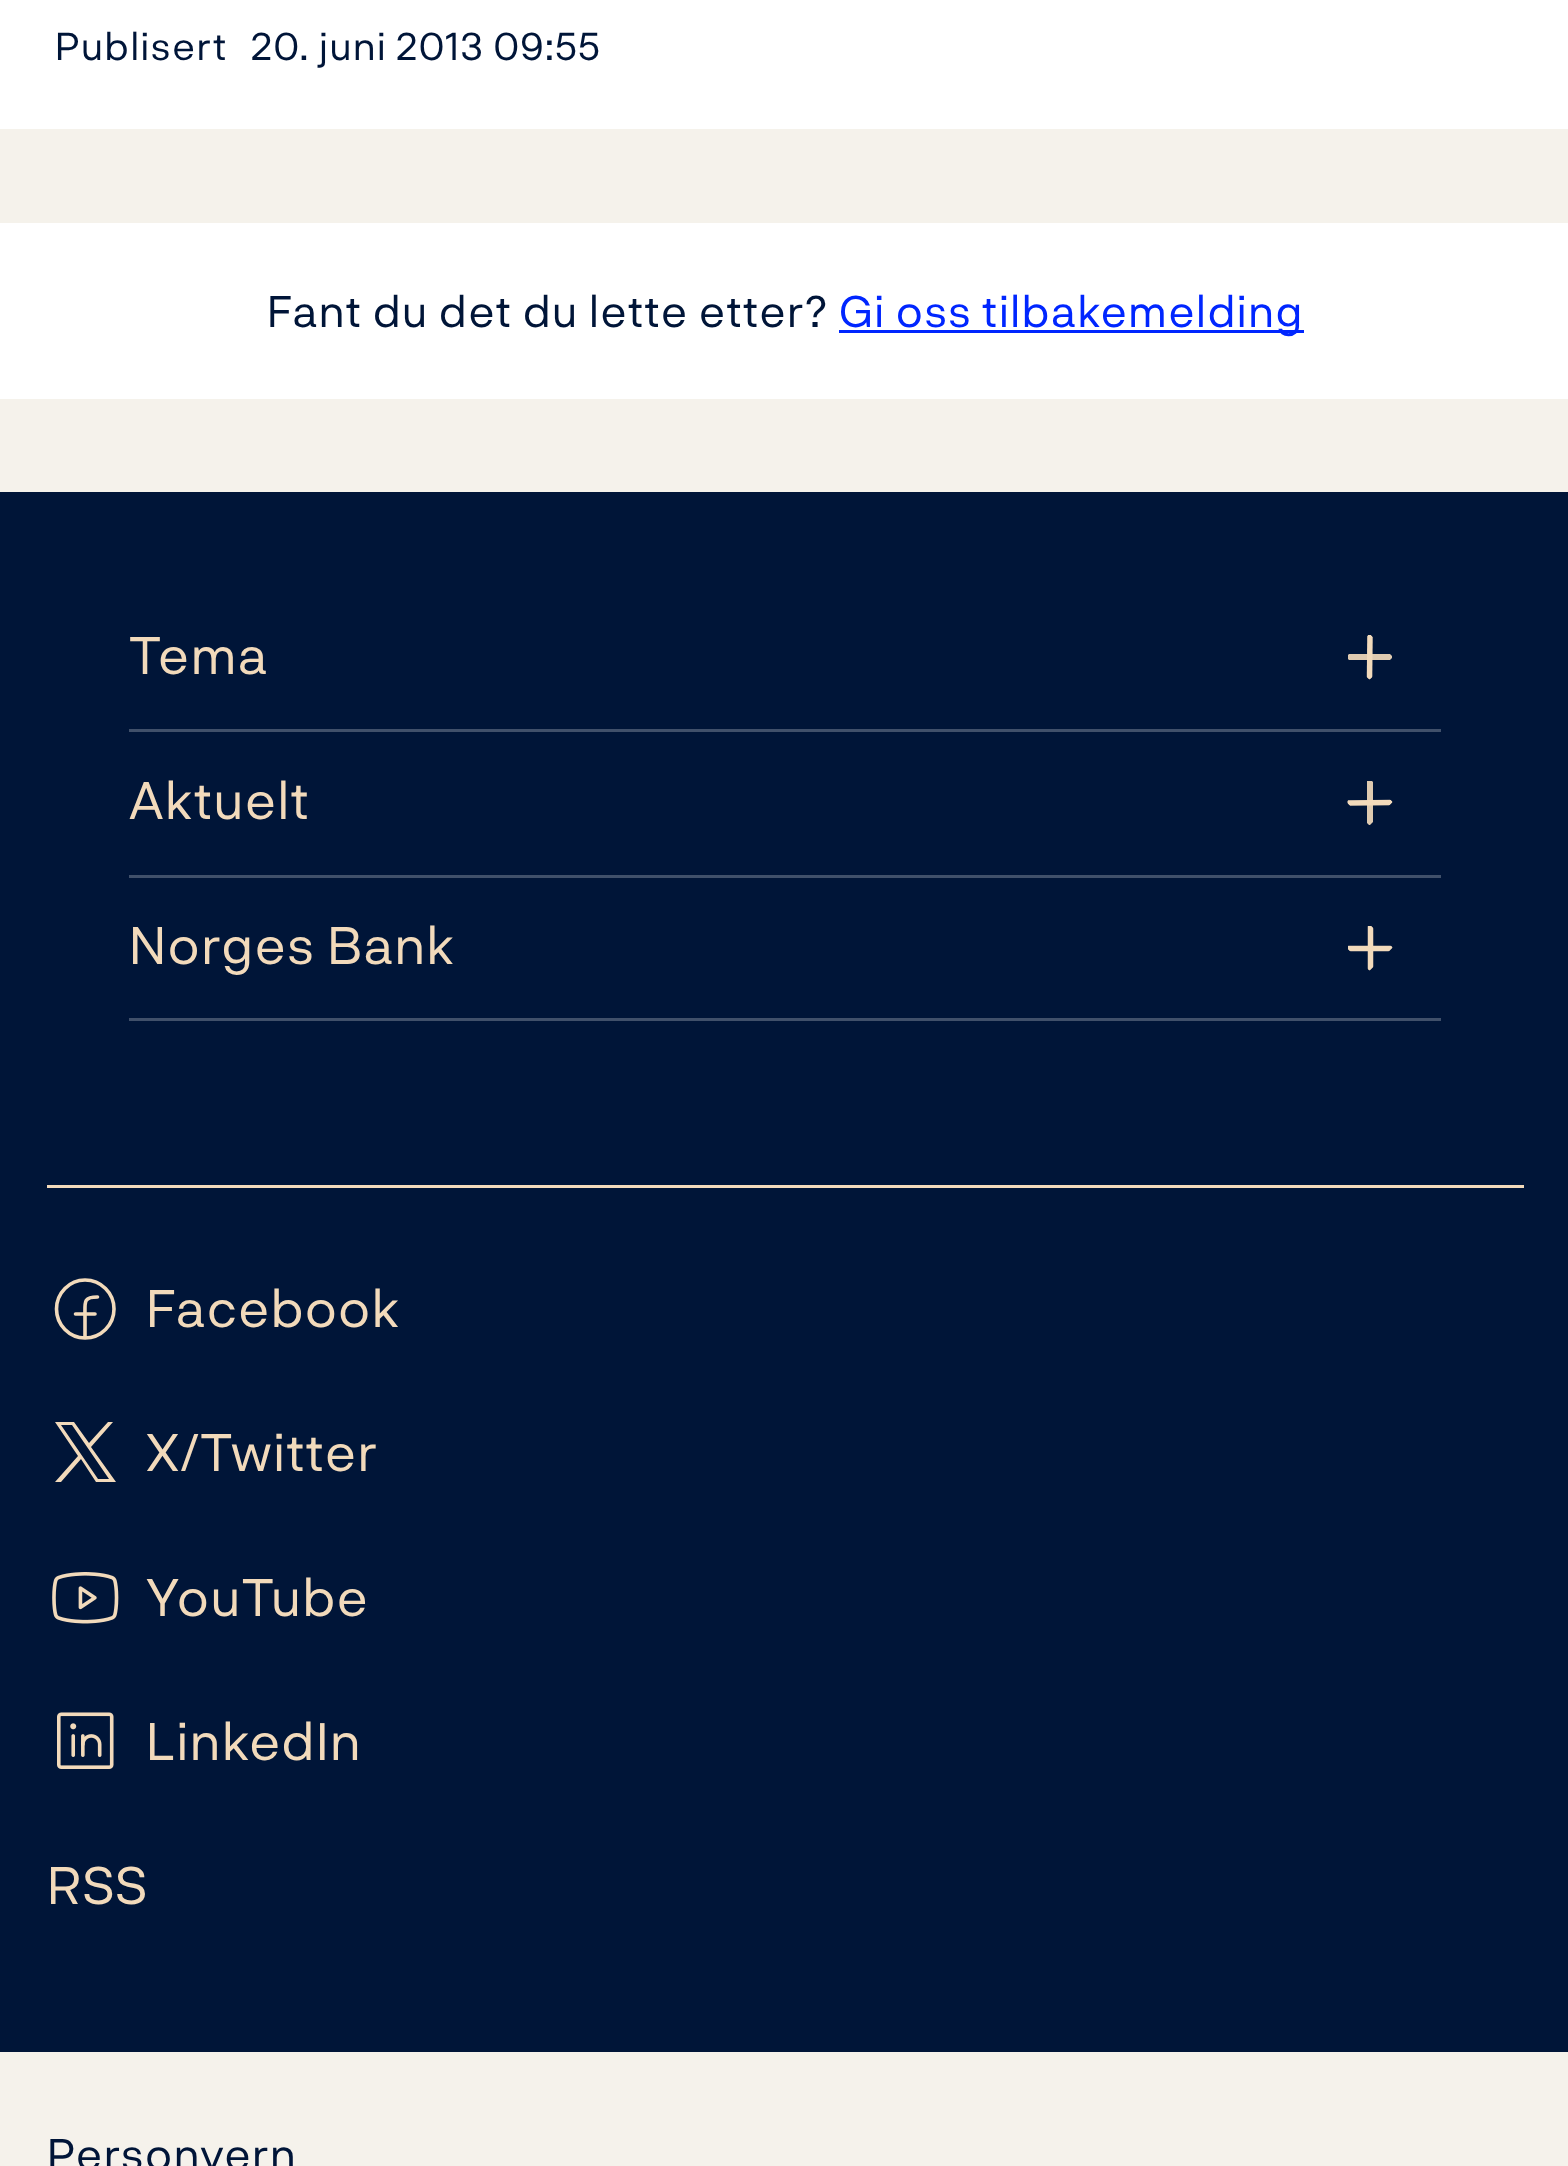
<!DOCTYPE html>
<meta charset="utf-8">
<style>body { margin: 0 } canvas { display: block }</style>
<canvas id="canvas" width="1568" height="2166"></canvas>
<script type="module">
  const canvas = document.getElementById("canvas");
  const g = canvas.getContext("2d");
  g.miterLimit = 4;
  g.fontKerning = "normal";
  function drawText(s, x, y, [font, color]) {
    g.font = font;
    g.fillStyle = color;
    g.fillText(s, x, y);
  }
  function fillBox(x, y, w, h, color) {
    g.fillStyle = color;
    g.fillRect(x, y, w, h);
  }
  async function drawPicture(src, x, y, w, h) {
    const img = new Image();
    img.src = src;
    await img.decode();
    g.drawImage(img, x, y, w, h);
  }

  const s1 = ["38.5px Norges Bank", "#001538"];
  const s2 = ["44px Norges Bank", "#001538"];
  const s3 = ["44px Norges Bank", "#0026FF"];
  const s4 = ["52.25px Norges Bank", "#F2DABB"];

  fillBox(0, 0, 1568, 2166, "#F5F2EB");
  fillBox(0, 0, 1568, 129, "#FFFFFF");
  g.letterSpacing = "1.55px";
  drawText("Publisert", 55, 60, s1);
  drawText("20. juni 2013 09:55", 251, 60, s1);
  fillBox(0, 223, 1568, 176, "#FFFFFF");
  drawText("Fant du det du lette etter?", 267, 327, s2);
  fillBox(839, 330, 465, 3, "#0026FF");
  drawText("Gi oss tilbakemelding", 839, 327, s3);
  fillBox(0, 492, 1568, 1560, "#001538");
  fillBox(47, 1185, 1477, 3, "#F2DABB");
  fillBox(129, 729, 1312, 3, "#40506A");
  drawText("Tema", 129, 674, s4);
  g.save();
  g.beginPath();
  g.moveTo(1346, 657);
  g.lineTo(1369.5, 633.5);
  g.lineTo(1393, 657);
  g.lineTo(1369.5, 680);
  g.closePath();
  g.clip();
  g.beginPath();
  g.moveTo(1346, 657);
  g.lineTo(1369.5, 633.5);
  g.lineTo(1393, 657);
  g.lineTo(1369.5, 680);
  g.closePath();
  g.clip();
  g.beginPath();
  g.moveTo(1370, 635);
  g.lineTo(1369.5, 679.5);
  g.strokeStyle = "#F2DABB";
  g.lineWidth = 5.5;
  g.stroke();
  g.restore();
  g.fillStyle = "rgba(242, 218, 187, 0.92)";
  g.beginPath();
  g.moveTo(1349, 660);
  g.lineTo(1390, 660);
  g.lineTo(1392, 658);
  g.lineTo(1392, 656);
  g.lineTo(1390, 654);
  g.lineTo(1349, 654);
  g.lineTo(1348, 655);
  g.lineTo(1348, 659);
  g.closePath();
  g.fill();
  fillBox(129, 875, 1312, 3, "#40506A");
  drawText("Aktuelt", 129, 819, s4);
  g.fillStyle = "#DECAB0";
  g.beginPath();
  g.moveTo(1369, 825);
  g.lineTo(1370, 825);
  g.lineTo(1373, 822);
  g.lineTo(1373, 782);
  g.lineTo(1372, 781);
  g.lineTo(1367, 781);
  g.lineTo(1367, 823);
  g.closePath();
  g.fill();
  g.save();
  g.beginPath();
  g.moveTo(1346, 802);
  g.lineTo(1369.5, 779);
  g.lineTo(1393, 802);
  g.lineTo(1369.5, 825.5);
  g.closePath();
  g.clip();
  g.beginPath();
  g.moveTo(1346, 802);
  g.lineTo(1369.5, 779);
  g.lineTo(1393, 802);
  g.lineTo(1369.5, 825.5);
  g.closePath();
  g.clip();
  g.beginPath();
  g.moveTo(1347.5, 803);
  g.lineTo(1392.5, 802.5);
  g.strokeStyle = "#F2DABB";
  g.lineWidth = 5.5;
  g.stroke();
  g.restore();
  fillBox(129, 1018, 1312, 3, "#40506A");
  drawText("Norges Bank", 129, 964, s4);
  g.save();
  g.beginPath();
  g.moveTo(1346, 947.5);
  g.lineTo(1369.5, 924);
  g.lineTo(1393, 947.5);
  g.lineTo(1369.5, 971);
  g.closePath();
  g.clip();
  g.beginPath();
  g.moveTo(1346, 947.5);
  g.lineTo(1369.5, 924);
  g.lineTo(1393, 947.5);
  g.lineTo(1369.5, 971);
  g.closePath();
  g.clip();
  g.beginPath();
  g.moveTo(1370.5, 926);
  g.lineTo(1370.5, 970.5);
  g.moveTo(1348, 948.5);
  g.lineTo(1392.5, 948.5);
  g.strokeStyle = "#F2DABB";
  g.lineWidth = 5.5;
  g.stroke();
  g.restore();
  g.beginPath();
  g.moveTo(85, 1338);
  g.bezierCurveTo(101, 1338, 114, 1325, 114, 1309);
  g.bezierCurveTo(114, 1293, 101, 1280, 85, 1280);
  g.bezierCurveTo(69.5, 1280, 56.5, 1293, 56.5, 1309);
  g.bezierCurveTo(56.5, 1325, 69.5, 1338, 85, 1338);
  g.closePath();
  g.moveTo(97.5, 1297);
  g.bezierCurveTo(83, 1297, 85, 1302, 85, 1315.5);
  g.lineTo(85, 1338);
  g.moveTo(75.5, 1314);
  g.lineTo(95, 1314);
  g.strokeStyle = "#F2DABB";
  g.lineWidth = 3.6;
  g.lineCap = "round";
  g.lineJoin = "round";
  g.stroke();
  drawText("Facebook", 146, 1327, s4);
  g.beginPath();
  g.moveTo(55, 1422);
  g.lineTo(78, 1456);
  g.lineTo(55, 1482);
  g.lineTo(61, 1482);
  g.lineTo(81, 1459);
  g.lineTo(96, 1482);
  g.lineTo(116, 1482);
  g.lineTo(91, 1447);
  g.lineTo(113, 1422);
  g.lineTo(108, 1422);
  g.lineTo(89, 1443);
  g.lineTo(74, 1422);
  g.closePath();
  g.moveTo(61, 1425);
  g.lineTo(72, 1425);
  g.lineTo(109, 1479);
  g.lineTo(98, 1479);
  g.closePath();
  g.fill();
  drawText("X/Twitter", 146, 1471, s4);
  await drawPicture("pic1.png", 52, 1572, 67, 52);
  drawText("YouTube", 146, 1616, s4);
  await drawPicture("pic2.png", 57, 1712, 57, 57);
  drawText("LinkedIn", 146, 1760, s4);
  drawText("RSS", 47, 1904, s4);
  drawText("Personvern", 47, 2170, s2);
</script>
